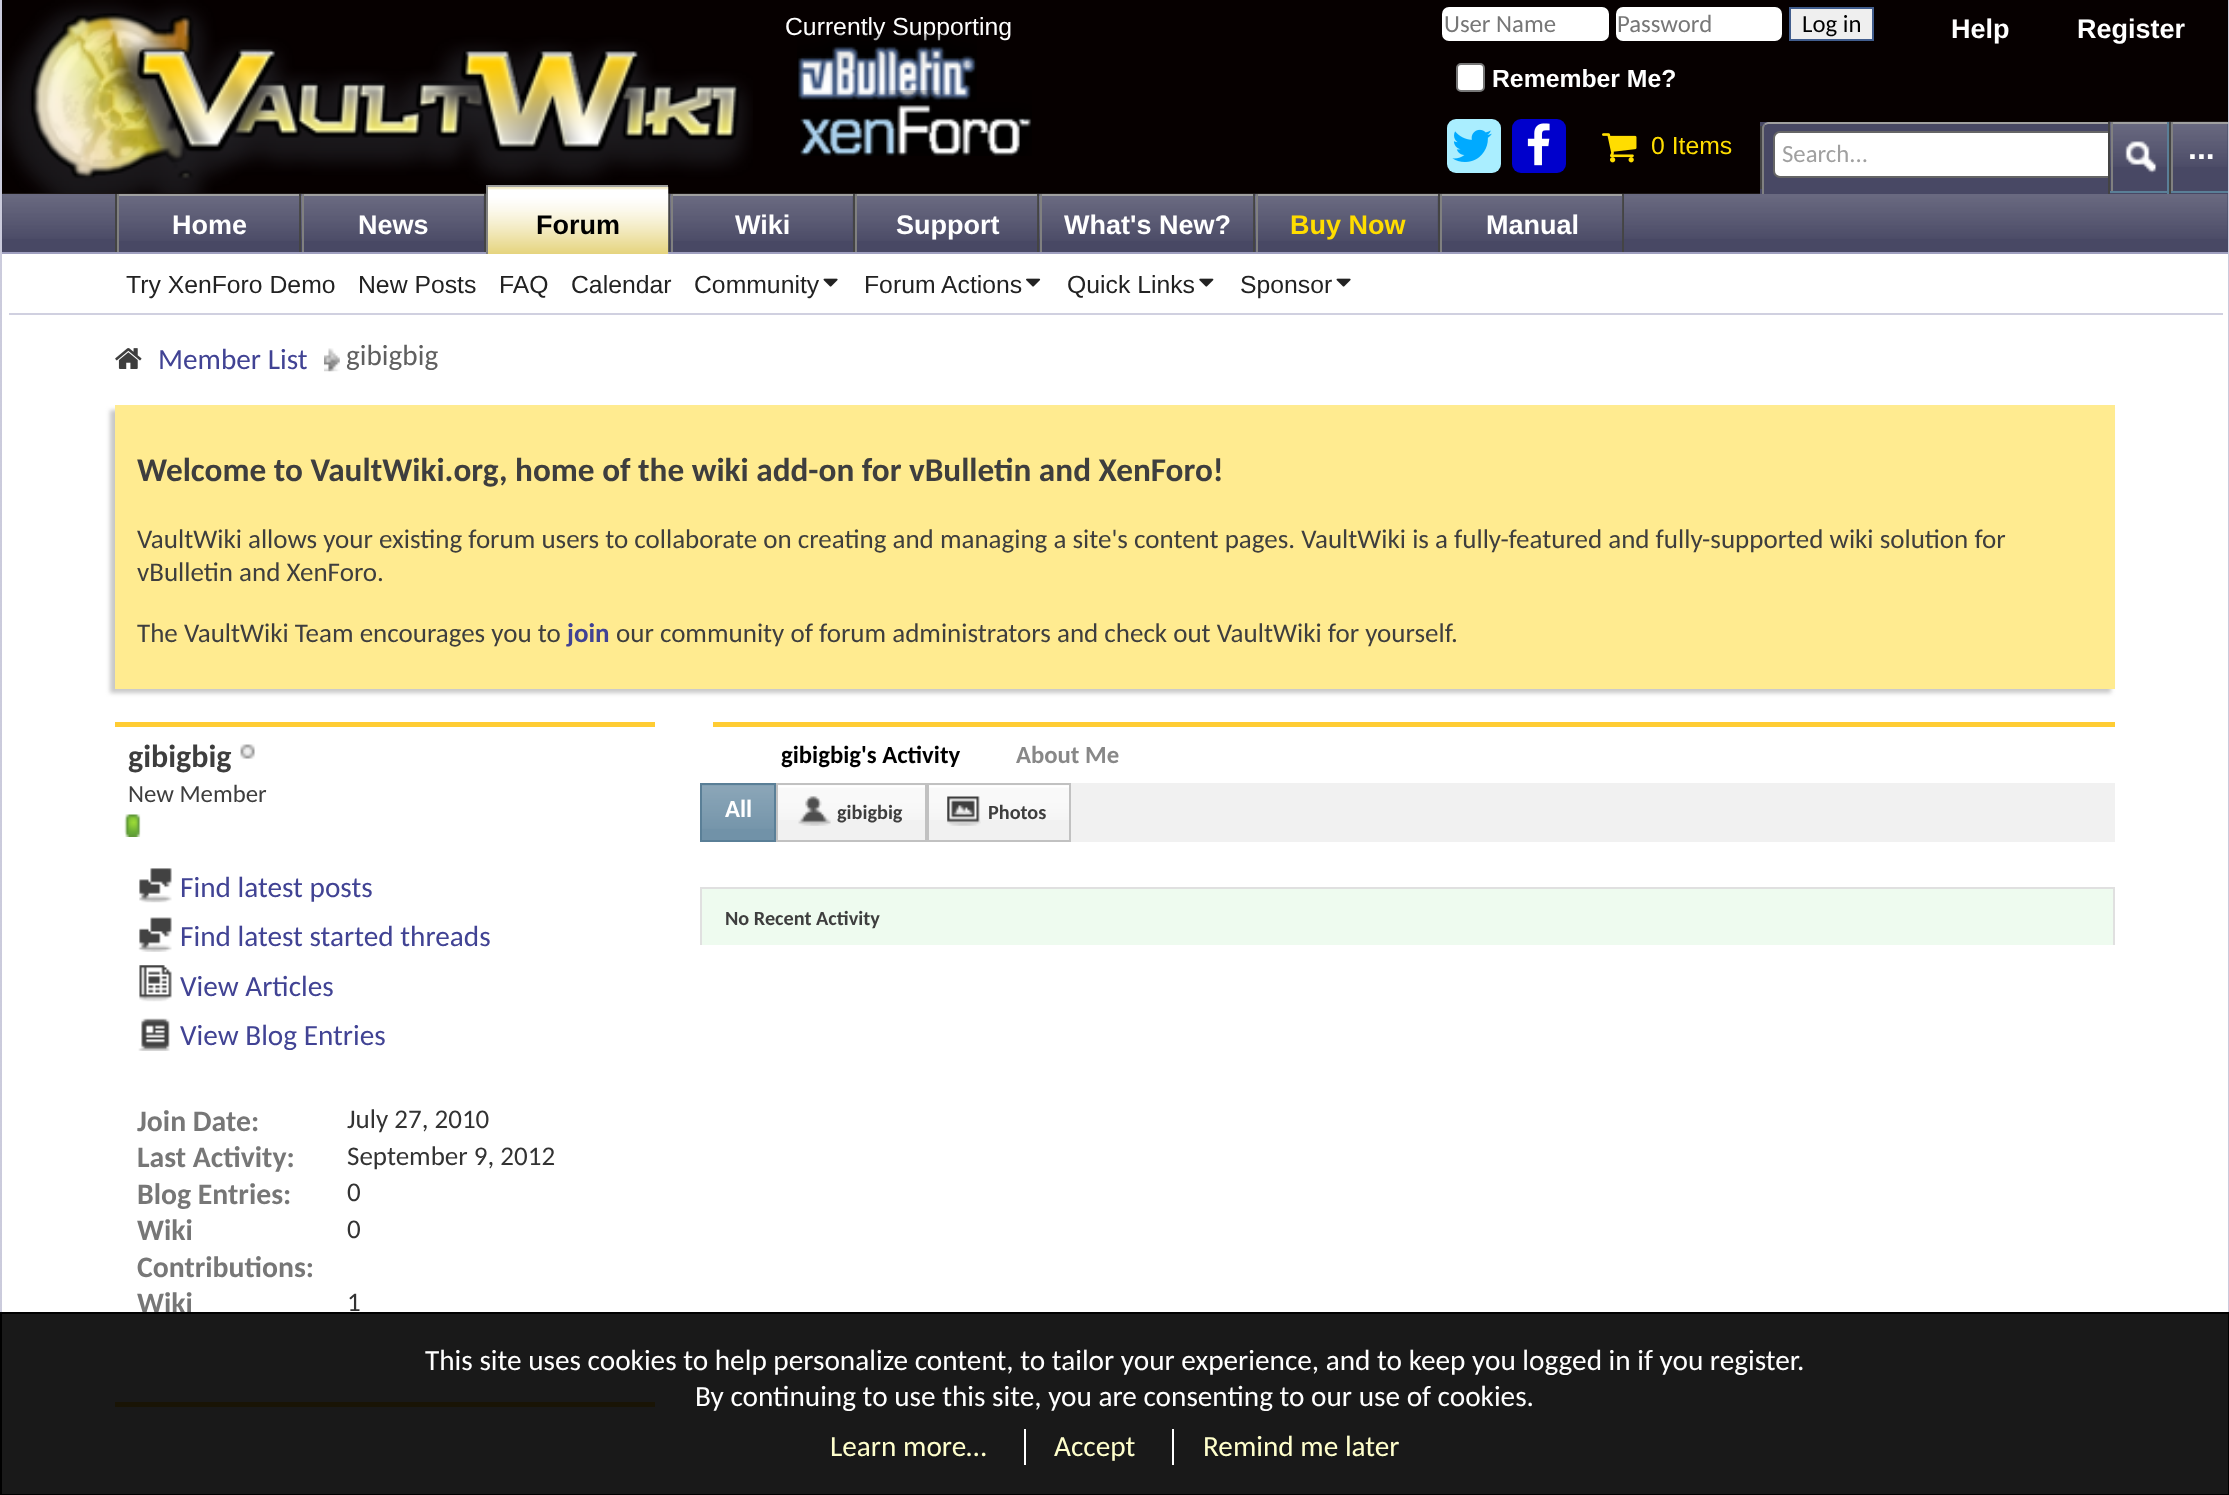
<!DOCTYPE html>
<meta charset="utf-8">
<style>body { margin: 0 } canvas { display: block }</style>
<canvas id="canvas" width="2229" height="1495"></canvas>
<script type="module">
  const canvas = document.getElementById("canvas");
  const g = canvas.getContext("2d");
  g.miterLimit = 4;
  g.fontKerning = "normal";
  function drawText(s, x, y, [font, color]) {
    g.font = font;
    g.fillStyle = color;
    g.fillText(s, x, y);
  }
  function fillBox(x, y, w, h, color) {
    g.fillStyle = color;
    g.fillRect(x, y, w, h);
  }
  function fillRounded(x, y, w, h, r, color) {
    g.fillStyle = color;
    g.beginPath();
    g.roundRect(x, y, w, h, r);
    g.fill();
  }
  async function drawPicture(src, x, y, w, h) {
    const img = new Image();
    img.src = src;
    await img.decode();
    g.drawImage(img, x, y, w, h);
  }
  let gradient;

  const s1 = ["24.75px Liberation Sans", "#FFFFFF"];
  const s2 = ["24.75px Carlito", "#777777"];
  const s3 = ["24.75px Carlito", "#000000"];
  const s4 = ["bold 24.75px Liberation Sans", "#FFFFFF"];
  const s5 = ["bold 27px Liberation Sans", "#FFFFFF"];
  const s6 = ["24.75px Liberation Sans", "#FFDD00"];
  const s7 = ["24.75px Carlito", "#A0A0A0"];
  const s8 = ["bold 32px Liberation Sans", "#FFFFFF"];
  const s9 = ["bold 27px Liberation Sans", "#000000"];
  const s10 = ["bold 27px Liberation Sans", "#FFDD00"];
  const s11 = ["24.75px Liberation Sans", "#222222"];
  const s12 = ["29.25px Carlito", "#414394"];
  const s13 = ["29.25px Carlito", "#606060"];
  const s14 = ["bold 33.25px Carlito", "#3E3E3E"];
  const s15 = ["27px Carlito", "#3E3E3E"];
  const s16 = ["bold 27px Carlito", "#414394"];
  const s17 = ["bold 32px Carlito", "#3E3E3E"];
  const s18 = ["24.75px Carlito", "#3E3E3E"];
  const s19 = ["bold 29.75px Carlito", "#777777"];
  const s20 = ["27px Carlito", "#333333"];
  const s21 = ["bold 24.75px Carlito", "#000000"];
  const s22 = ["bold 24.75px Carlito", "#888888"];
  const s23 = ["bold 24.75px Carlito", "#FFFFFF"];
  const s24 = ["bold 20.25px Carlito", "#3E3E3E"];
  const s25 = ["29.25px Carlito", "#FFFFFF"];
  const s26 = ["29.25px Carlito", "#FFFFCC"];

  fillBox(0, 0, 2229, 1495, "#FFFFFF");
  gradient = g.createLinearGradient(1116, 748, 0, 748);
  gradient.addColorStop(0, "#FFFFFF");
  gradient.addColorStop(0.89, "#FFFFFF");
  gradient.addColorStop(0.9, "#4F4C7A");
  gradient.addColorStop(1, "#CCCCDD");
  g.fillStyle = gradient;
  g.fillRect(0, 0, 2, 1312);
  gradient = g.createLinearGradient(1116, 748, 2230, 748);
  gradient.addColorStop(0, "#FFFFFF");
  gradient.addColorStop(0.89, "#FFFFFF");
  gradient.addColorStop(0.9, "#4F4C7A");
  gradient.addColorStop(1, "#CCCCDD");
  g.fillStyle = gradient;
  g.fillRect(2228, 0, 1, 1312);
  fillBox(2, 0, 2226, 194, "#060000");
  await drawPicture("pic1.png", 2, 0, 751, 193);
  drawText("Currently Supporting", 785, 35, s1);
  await drawPicture("pic2.png", 797, 33, 180, 69);
  await drawPicture("pic3.png", 800, 90, 232, 66);
  fillRounded(1442, 7, 167, 34, 7, "#FFFFFF");
  drawText("User Name", 1444, 32, s2);
  fillRounded(1616, 7, 166, 34, 7, "#FFFFFF");
  drawText("Password", 1617, 32, s2);
  g.fillStyle = "#EFEFEF";
  g.beginPath();
  g.rect(1790, 8, 83, 32);
  g.fill();
  g.strokeStyle = "#415D8D";
  g.lineWidth = 2;
  g.stroke();
  drawText("Log in", 1802, 32, s3);
  g.fillStyle = "#FFFFFF";
  g.beginPath();
  g.roundRect(1457, 64, 27, 27, 4);
  g.fill();
  g.strokeStyle = "#767676";
  g.stroke();
  drawText("Remember Me?", 1492, 87, s4);
  drawText("Help", 1951, 38, s5);
  drawText("Register", 2077, 38, s5);
  fillRounded(1447, 119, 54, 54, 9, "#AAEEFF");
  await drawPicture("pic4.png", 1452, 129, 40, 33);
  fillRounded(1512, 119, 54, 54, 9, "#0000CC");
  await drawPicture("pic5.png", 1527, 123, 23, 43);
  await drawPicture("pic6.png", 1602, 133, 35, 30);
  drawText("0 Items", 1651, 154, s6);
  fillBox(9, 313, 2214, 2, "#D0D0E0");
  fillBox(2, 194, 2226, 58, "#484864");
  await drawPicture("pic10.png", 2, 193, 2226, 46);
  fillBox(1760, 122, 468, 72, "#484864");
  fillBox(1760, 126, 2, 63, "#444444");
  g.fillStyle = "#A0A0A0";
  g.beginPath();
  g.moveTo(1768, 122);
  g.lineTo(2108, 122);
  g.lineTo(2108, 124);
  g.lineTo(1768, 124);
  g.lineTo(1765, 125);
  g.lineTo(1764, 124);
  g.bezierCurveTo(1765, 123, 1767, 122, 1768, 122);
  g.closePath();
  g.fill();
  g.fillStyle = "#808080";
  g.beginPath();
  g.moveTo(1764, 194);
  g.lineTo(1762, 194);
  g.lineTo(1762, 128);
  g.bezierCurveTo(1762, 126, 1763, 125, 1764, 124);
  g.lineTo(1765, 125);
  g.lineTo(1764, 128);
  g.closePath();
  g.fill();
  g.fillStyle = "#FFFFFF";
  g.beginPath();
  g.roundRect(1774, 132, 340, 45, 6);
  g.fill();
  g.strokeStyle = "#666666";
  g.stroke();
  drawText("Search...", 1782, 162, s7);
  fillBox(2110, 131, 5, 47, "#484864");
  await drawPicture("pic7.png", 2108, 121, 61, 46);
  fillBox(2167, 122, 2, 72, "#5A7F97");
  fillBox(2108, 191, 61, 2, "#5A7F97");
  fillBox(2108, 122, 2, 72, "#444444");
  fillBox(2111, 122, 56, 2, "#A0A0A0");
  fillBox(2111, 122, 2, 69, "#808080");
  await drawPicture("pic8.png", 2125, 141, 32, 33);
  await drawPicture("pic9.png", 2169, 121, 59, 46);
  fillBox(2169, 191, 59, 2, "#5A7F97");
  fillBox(2169, 122, 2, 72, "#444444");
  fillBox(2171, 122, 57, 2, "#A0A0A0");
  fillBox(2171, 122, 2, 69, "#808080");
  drawText("...", 2188, 159, s8);
  fillBox(299, 194, 2, 60, "#444444");
  fillBox(115, 194, 2, 60, "#444444");
  fillBox(119, 196, 180, 43, "#484864");
  await drawPicture("pic11.png", 119, 196, 181, 45);
  fillBox(117, 194, 182, 2, "#A0A0A0");
  fillBox(117, 194, 2, 60, "#808080");
  drawText("Home", 172, 234, s5);
  fillBox(484, 194, 2, 60, "#444444");
  fillBox(304, 196, 180, 43, "#484864");
  await drawPicture("pic12.png", 301, 195, 183, 46);
  fillBox(302, 194, 182, 2, "#A0A0A0");
  fillBox(302, 194, 2, 60, "#808080");
  drawText("News", 358, 234, s5);
  fillBox(668, 194, 2, 58, "#444444");
  fillBox(853, 194, 2, 60, "#444444");
  fillBox(673, 196, 180, 43, "#484864");
  await drawPicture("pic12.png", 670, 195, 183, 46);
  fillBox(671, 194, 182, 2, "#A0A0A0");
  fillBox(671, 194, 2, 60, "#808080");
  fillBox(1037, 194, 2, 60, "#444444");
  fillBox(855, 194, 182, 2, "#A0A0A0");
  fillBox(855, 194, 2, 60, "#808080");
  fillBox(1253, 194, 2, 60, "#444444");
  fillBox(1042, 196, 211, 43, "#484864");
  await drawPicture("pic14.png", 1039, 195, 215, 46);
  fillBox(1040, 194, 213, 2, "#A0A0A0");
  fillBox(1040, 194, 2, 60, "#808080");
  fillBox(1438, 194, 2, 60, "#444444");
  fillBox(1258, 196, 180, 43, "#484864");
  await drawPicture("pic12.png", 1255, 195, 183, 46);
  fillBox(1256, 194, 182, 2, "#A0A0A0");
  fillBox(1256, 194, 2, 60, "#808080");
  fillBox(1622, 194, 2, 60, "#444444");
  fillBox(1440, 194, 182, 2, "#A0A0A0");
  fillBox(1440, 194, 2, 60, "#808080");
  fillBox(2, 252, 2226, 2, "#A0A0C0");
  fillBox(488, 187, 180, 67, "#CCAA00");
  await drawPicture("pic13.png", 488, 186, 181, 68);
  fillBox(486, 185, 182, 2, "#A0A0A0");
  fillBox(486, 185, 2, 69, "#808080");
  drawText("Forum", 536, 234, s9);
  drawText("Wiki", 735, 234, s5);
  fillBox(857, 196, 180, 43, "#484864");
  await drawPicture("pic11.png", 857, 196, 181, 45);
  drawText("Support", 896, 234, s5);
  drawText("What's New?", 1064, 234, s5);
  drawText("Buy Now", 1290, 234, s10);
  fillBox(1442, 196, 180, 43, "#484864");
  await drawPicture("pic11.png", 1442, 196, 181, 45);
  drawText("Manual", 1486, 234, s5);
  drawText("Try XenForo Demo", 126, 293, s11);
  drawText("New Posts", 358, 293, s11);
  drawText("FAQ", 499, 293, s11);
  drawText("Calendar", 571, 293, s11);
  drawText("Community", 694, 293, s11);
  await drawPicture("pic15.png", 823, 278, 15, 9);
  drawText("Forum Actions", 864, 293, s11);
  await drawPicture("pic16.png", 1026, 278, 15, 9);
  drawText("Quick Links", 1067, 293, s11);
  await drawPicture("pic17.png", 1199, 278, 15, 9);
  drawText("Sponsor", 1240, 293, s11);
  await drawPicture("pic15.png", 1336, 278, 15, 9);
  await drawPicture("pic18.png", 115, 348, 27, 21);
  await drawPicture("pic19.png", 324, 348, 16, 24);
  drawText("Member List", 158, 369, s12);
  drawText("gibigbig", 346, 365, s13);
  g.fillStyle = "#C8C8C8";
  g.filter = "blur(2px)";
  g.beginPath();
  g.rect(110, 410, 2001, 283);
  g.fill();
  g.filter = "none";
  fillBox(115, 405, 2000, 284, "#FFEB90");
  drawText("Welcome to VaultWiki.org, home of the wiki add-on for vBulletin and XenForo!", 137, 481, s14);
  drawText("VaultWiki allows your existing forum users to collaborate on creating and managing a site's content pages. VaultWiki is a fully-featured and fully-supported wiki solution for", 137, 548, s15);
  drawText("vBulletin and XenForo.", 137, 581, s15);
  drawText("The VaultWiki Team encourages you to", 137, 642, s15);
  drawText("join", 567, 642, s16);
  drawText("our community of forum administrators and check out VaultWiki for yourself.", 616, 642, s15);
  fillBox(115, 722, 540, 5, "#FFCC33");
  drawText("gibigbig", 128, 767, s17);
  await drawPicture("pic20.png", 240, 744, 15, 15);
  drawText("New Member", 128, 802, s18);
  await drawPicture("pic21.png", 124, 814, 17, 23);
  await drawPicture("pic22.png", 139, 868, 33, 35);
  drawText("Find latest posts", 180, 897, s12);
  await drawPicture("pic23.png", 138, 917, 34, 35);
  drawText("Find latest started threads", 180, 946, s12);
  await drawPicture("pic24.png", 139, 965, 33, 37);
  drawText("View Articles", 180, 996, s12);
  await drawPicture("pic25.png", 138, 1018, 32, 33);
  drawText("View Blog Entries", 180, 1045, s12);
  drawText("Join Date:", 137, 1131, s19);
  drawText("July 27, 2010", 347, 1128, s20);
  drawText("Last Activity:", 137, 1167, s19);
  drawText("September 9, 2012", 347, 1165, s20);
  drawText("Blog Entries:", 137, 1204, s19);
  drawText("0", 347, 1201, s20);
  drawText("Wiki", 137, 1240, s19);
  drawText("Contributions:", 137, 1277, s19);
  drawText("0", 347, 1238, s20);
  drawText("Wiki", 137, 1313, s19);
  drawText("1", 347, 1311, s20);
  fillBox(115, 1402, 540, 5, "#FFCC33");
  fillBox(713, 722, 1402, 5, "#FFCC33");
  drawText("gibigbig's Activity", 781, 763, s21);
  drawText("About Me", 1016, 763, s22);
  fillBox(778, 783, 1337, 59, "#F1F1F1");
  fillBox(702, 785, 72, 55, "#7192A8");
  await drawPicture("pic26.png", 702, 785, 72, 44);
  g.strokeStyle = "#5A7F97";
  g.strokeRect(701, 784, 74, 57);
  drawText("All", 725, 817, s23);
  await drawPicture("pic27.png", 778, 785, 147, 35);
  g.strokeStyle = "#C1C1C1";
  g.strokeRect(777, 784, 149, 57);
  await drawPicture("pic28.png", 798, 796, 33, 30);
  drawText("gibigbig", 837, 819, s24);
  await drawPicture("pic29.png", 929, 785, 140, 35);
  g.strokeRect(928, 784, 142, 57);
  await drawPicture("pic30.png", 947, 796, 34, 30);
  drawText("Photos", 988, 819, s24);
  fillBox(702, 889, 1411, 56, "#EEFBEF");
  fillBox(700, 887, 1415, 2, "#E0E0E0");
  fillBox(2113, 887, 2, 58, "#E0E0E0");
  fillBox(700, 887, 2, 58, "#E0E0E0");
  drawText("No Recent Activity", 725, 925, s24);
  g.fillStyle = "rgba(0, 0, 0, 0.9)";
  g.beginPath();
  g.rect(1, 1313, 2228, 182);
  g.fill();
  g.strokeStyle = "#000000";
  g.stroke();
  drawText("This site uses cookies to help personalize content, to tailor your experience, and to keep you logged in if you register.", 425, 1370, s25);
  drawText("By continuing to use this site, you are consenting to our use of cookies.", 695, 1406, s25);
  drawText("Learn more…", 830, 1456, s26);
  fillBox(1024, 1429, 2, 36, "#FFFFFF");
  drawText("Accept", 1054, 1456, s26);
  fillBox(1172, 1429, 2, 36, "#FFFFFF");
  drawText("Remind me later", 1203, 1456, s26);
</script>
